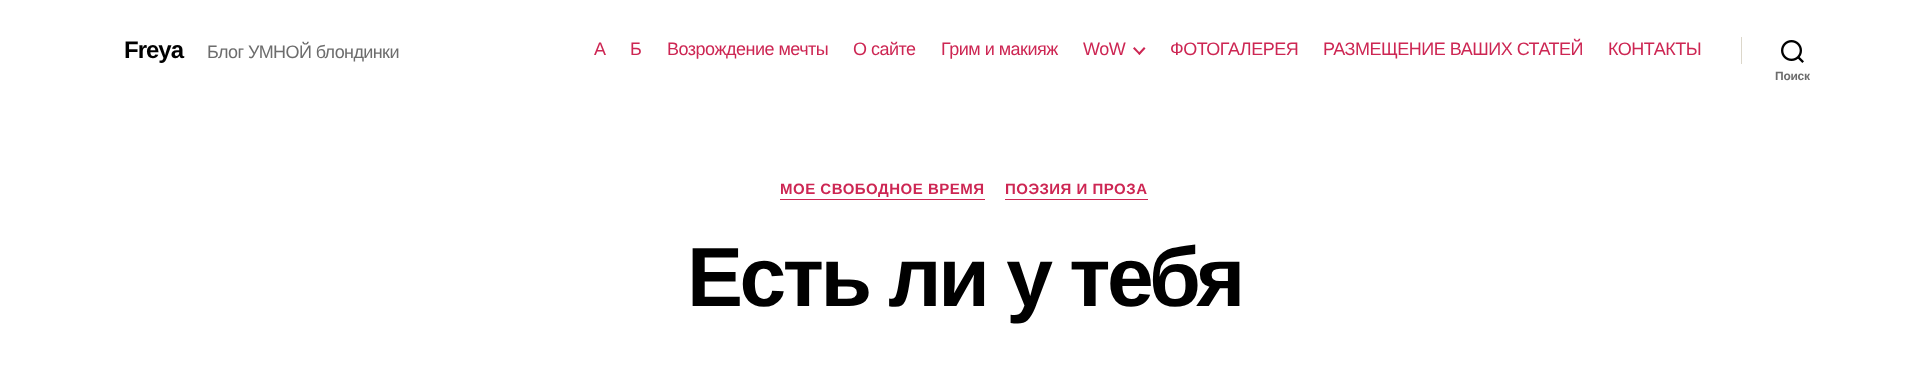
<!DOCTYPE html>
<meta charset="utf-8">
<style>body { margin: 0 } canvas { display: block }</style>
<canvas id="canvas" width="1928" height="370"></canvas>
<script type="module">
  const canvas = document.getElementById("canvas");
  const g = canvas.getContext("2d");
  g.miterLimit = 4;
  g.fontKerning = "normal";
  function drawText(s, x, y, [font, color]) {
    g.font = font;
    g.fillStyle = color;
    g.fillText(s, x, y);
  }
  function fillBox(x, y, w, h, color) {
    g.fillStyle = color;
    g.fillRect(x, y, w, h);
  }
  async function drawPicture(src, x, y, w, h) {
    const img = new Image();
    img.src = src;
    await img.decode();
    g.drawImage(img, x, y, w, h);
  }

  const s1 = ["bold 24px Liberation Sans", "#000000"];
  const s2 = ["18px Liberation Sans", "#6D6D6D"];
  const s3 = ["18px Liberation Sans", "#CD2653"];
  const s4 = ["bold 12px Liberation Sans", "#6D6D6D"];
  const s5 = ["bold 15px Liberation Sans", "#CD2653"];
  const s6 = ["bold 84px Liberation Sans", "#000000"];

  fillBox(0, 0, 1928, 370, "#FFFFFF");
  g.letterSpacing = "-1px";
  drawText("Freya", 124, 58, s1);
  g.letterSpacing = "-0.6px";
  drawText("Блог УМНОЙ блондинки", 207, 58, s2);
  g.letterSpacing = "-0.5px";
  drawText("А", 594, 55, s3);
  drawText("Б", 630, 55, s3);
  drawText("Возрождение мечты", 667, 55, s3);
  drawText("О сайте", 853, 55, s3);
  drawText("Грим и макияж", 941, 55, s3);
  drawText("WoW", 1083, 55, s3);
  g.beginPath();
  g.moveTo(1133, 48.5);
  g.lineTo(1134.5, 47);
  g.lineTo(1140.5, 53.5);
  g.lineTo(1139.5, 55);
  g.closePath();
  g.fill();
  g.beginPath();
  g.moveTo(1138, 53.5);
  g.lineTo(1144, 47);
  g.lineTo(1145.5, 48.5);
  g.lineTo(1139.5, 55);
  g.closePath();
  g.fill();
  drawText("ФОТОГАЛЕРЕЯ", 1170, 55, s3);
  drawText("РАЗМЕЩЕНИЕ ВАШИХ СТАТЕЙ", 1323, 55, s3);
  drawText("КОНТАКТЫ", 1608, 55, s3);
  fillBox(1741, 37, 1, 27, "#DCD7CA");
  await drawPicture("pic1.png", 1781, 40, 23, 23);
  g.letterSpacing = "-0.25px";
  drawText("Поиск", 1775, 80, s4);
  fillBox(780, 199, 205, 1, "#CD2653");
  g.letterSpacing = "0.5px";
  drawText("МОЕ СВОБОДНОЕ ВРЕМЯ", 780, 194, s5);
  fillBox(1005, 199, 143, 1, "#CD2653");
  drawText("ПОЭЗИЯ И ПРОЗА", 1005, 194, s5);
  g.letterSpacing = "-3.5px";
  drawText("Есть ли у тебя", 687, 306, s6);
</script>
